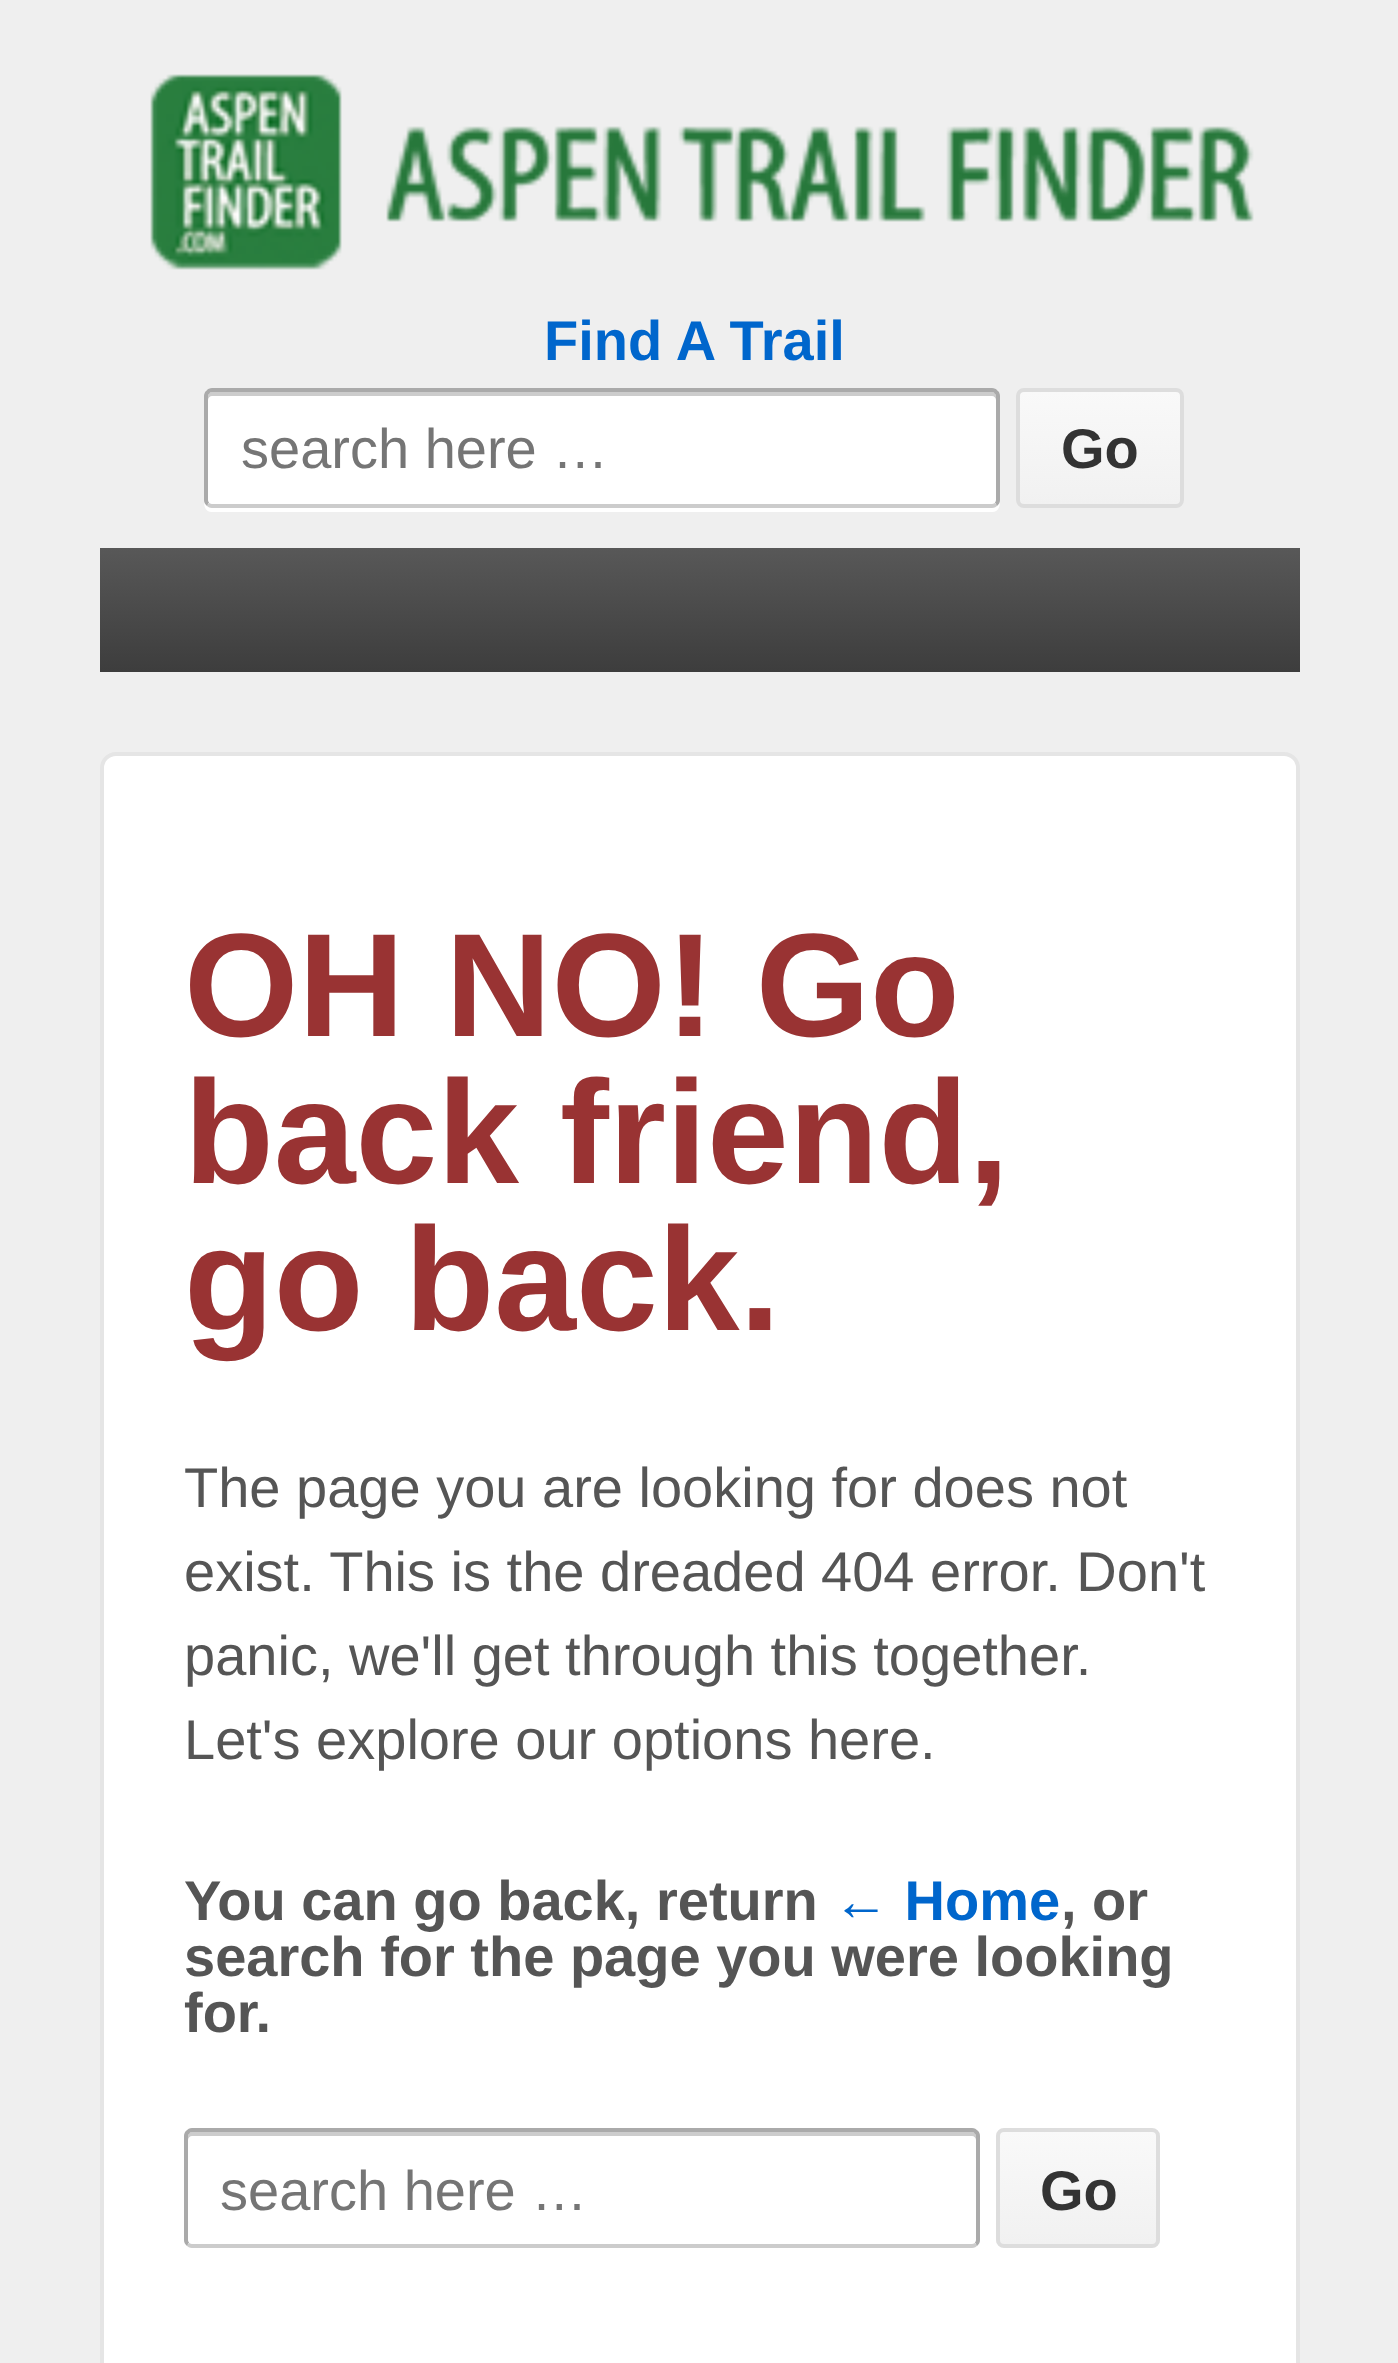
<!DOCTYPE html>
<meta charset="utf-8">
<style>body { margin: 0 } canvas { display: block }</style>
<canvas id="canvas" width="1398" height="2363"></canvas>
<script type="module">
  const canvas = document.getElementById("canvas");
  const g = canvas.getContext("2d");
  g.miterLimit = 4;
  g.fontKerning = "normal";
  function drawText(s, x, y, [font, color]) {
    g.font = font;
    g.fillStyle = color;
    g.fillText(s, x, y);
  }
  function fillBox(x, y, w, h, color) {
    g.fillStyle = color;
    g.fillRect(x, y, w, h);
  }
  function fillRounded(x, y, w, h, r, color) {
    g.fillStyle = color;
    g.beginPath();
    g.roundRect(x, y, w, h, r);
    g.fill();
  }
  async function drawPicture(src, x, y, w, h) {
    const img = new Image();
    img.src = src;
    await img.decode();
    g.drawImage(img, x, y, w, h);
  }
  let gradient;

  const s1 = ["bold 56px Liberation Sans", "#0066CC"];
  const s2 = ["56px Liberation Sans", "#757575"];
  const s3 = ["bold 56px Liberation Sans", "#333333"];
  const s4 = ["bold 147px Liberation Sans", "#993333"];
  const s5 = ["56px Liberation Sans", "#555555"];
  const s6 = ["bold 56px Liberation Sans", "#555555"];

  fillBox(0, 0, 1398, 2363, "#EFEFEF");
  await drawPicture("pic1.png", 150, 74, 1104, 196);
  drawText("Find A Trail", 544, 360, s1);
  g.fillStyle = "#FFFFFF";
  g.beginPath();
  g.moveTo(204, 500);
  g.bezierCurveTo(204, 506, 205, 512, 212, 512);
  g.lineTo(992, 512);
  g.bezierCurveTo(999, 512, 1000, 506, 1000, 500);
  g.bezierCurveTo(1000, 504, 996, 508, 992, 508);
  g.lineTo(212, 508);
  g.bezierCurveTo(208, 508, 204, 504, 204, 500);
  g.closePath();
  g.fill();
  fillRounded(204, 388, 796, 120, 8, "#FFFFFF");
  g.fillStyle = "#CCCCCC";
  g.beginPath();
  g.moveTo(212, 396);
  g.lineTo(992, 396);
  g.bezierCurveTo(994, 396, 996, 398, 996, 400);
  g.lineTo(996, 396);
  g.bezierCurveTo(996, 394, 994, 392, 992, 392);
  g.lineTo(212, 392);
  g.bezierCurveTo(210, 392, 208, 394, 208, 396);
  g.lineTo(208, 400);
  g.bezierCurveTo(208, 398, 210, 396, 212, 396);
  g.closePath();
  g.fill();
  g.beginPath();
  g.moveTo(996, 504);
  g.bezierCurveTo(995, 505.5, 993.5, 506, 992, 506);
  g.lineTo(212, 506);
  g.bezierCurveTo(210.5, 506, 209, 505.5, 208, 504);
  g.strokeStyle = "#CCCCCC";
  g.lineWidth = 4;
  g.stroke();
  g.beginPath();
  g.moveTo(208, 504);
  g.bezierCurveTo(206.5, 503, 206, 501.5, 206, 500);
  g.lineTo(206, 396);
  g.bezierCurveTo(206, 394.5, 206.5, 393, 208, 392);
  g.bezierCurveTo(209, 390.5, 210.5, 390, 212, 390);
  g.lineTo(992, 390);
  g.bezierCurveTo(993.5, 390, 995, 390.5, 996, 392);
  g.bezierCurveTo(997.5, 393, 998, 394.5, 998, 396);
  g.lineTo(998, 500);
  g.bezierCurveTo(998, 501.5, 997.5, 503, 996, 504);
  g.strokeStyle = "#AAAAAA";
  g.stroke();
  drawText("search here …", 241, 468, s2);
  g.save();
  g.beginPath();
  g.roundRect(1016, 388, 168, 120, 8);
  g.clip();
  gradient = g.createLinearGradient(1100, 392, 1100, 504);
  gradient.addColorStop(0, "#F9F9F9");
  gradient.addColorStop(1, "#F1F1F1");
  g.fillStyle = gradient;
  g.fillRect(1016, 392, 168, 112);
  g.restore();
  g.beginPath();
  g.roundRect(1018, 390, 164, 116, 6);
  g.strokeStyle = "#DDDDDD";
  g.stroke();
  drawText("Go", 1061, 468, s3);
  gradient = g.createLinearGradient(700, 548, 700, 672);
  gradient.addColorStop(0, "#585858");
  gradient.addColorStop(1, "#3D3D3D");
  g.fillStyle = gradient;
  g.fillRect(100, 548, 1200, 124);
  g.fillStyle = "#FFFFFF";
  g.beginPath();
  g.roundRect(102, 754, 1196, 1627, 14);
  g.fill();
  g.strokeStyle = "#E5E5E5";
  g.stroke();
  drawText("OH NO! Go", 184, 1036, s4);
  drawText("back friend,", 184, 1183, s4);
  drawText("go back.", 184, 1330, s4);
  drawText("The page you are looking for does not", 184, 1507, s5);
  drawText("exist. This is the dreaded 404 error. Don't", 184, 1591, s5);
  drawText("panic, we'll get through this together.", 184, 1675, s5);
  drawText("Let's explore our options here.", 184, 1759, s5);
  drawText("You can go back, return", 184, 1920, s6);
  drawText("← Home", 833, 1920, s1);
  drawText(", or", 1061, 1920, s6);
  drawText("search for the page you were looking", 184, 1976, s6);
  drawText("for.", 184, 2032, s6);
  g.fillStyle = "#CCCCCC";
  g.beginPath();
  g.moveTo(192, 2136);
  g.lineTo(972, 2136);
  g.bezierCurveTo(974, 2136, 976, 2138, 976, 2140);
  g.lineTo(976, 2136);
  g.bezierCurveTo(976, 2134, 974, 2132, 972, 2132);
  g.lineTo(192, 2132);
  g.bezierCurveTo(190, 2132, 188, 2134, 188, 2136);
  g.lineTo(188, 2140);
  g.bezierCurveTo(188, 2138, 190, 2136, 192, 2136);
  g.closePath();
  g.fill();
  g.beginPath();
  g.moveTo(976, 2244);
  g.bezierCurveTo(975, 2245.5, 973.5, 2246, 972, 2246);
  g.lineTo(192, 2246);
  g.bezierCurveTo(190.5, 2246, 189, 2245.5, 188, 2244);
  g.strokeStyle = "#CCCCCC";
  g.stroke();
  g.beginPath();
  g.moveTo(188, 2244);
  g.bezierCurveTo(186.5, 2243, 186, 2241.5, 186, 2240);
  g.lineTo(186, 2136);
  g.bezierCurveTo(186, 2134.5, 186.5, 2133, 188, 2132);
  g.bezierCurveTo(189, 2130.5, 190.5, 2130, 192, 2130);
  g.lineTo(972, 2130);
  g.bezierCurveTo(973.5, 2130, 975, 2130.5, 976, 2132);
  g.bezierCurveTo(977.5, 2133, 978, 2134.5, 978, 2136);
  g.lineTo(978, 2240);
  g.bezierCurveTo(978, 2241.5, 977.5, 2243, 976, 2244);
  g.strokeStyle = "#AAAAAA";
  g.stroke();
  drawText("search here …", 220, 2210, s2);
  g.save();
  g.beginPath();
  g.roundRect(996, 2128, 164, 120, 8);
  g.clip();
  gradient = g.createLinearGradient(1078, 2132, 1078, 2244);
  gradient.addColorStop(0, "#F9F9F9");
  gradient.addColorStop(1, "#F1F1F1");
  g.fillStyle = gradient;
  g.fillRect(996, 2132, 164, 112);
  g.restore();
  g.beginPath();
  g.roundRect(998, 2130, 160, 116, 6);
  g.strokeStyle = "#DDDDDD";
  g.stroke();
  drawText("Go", 1040, 2210, s3);
</script>
